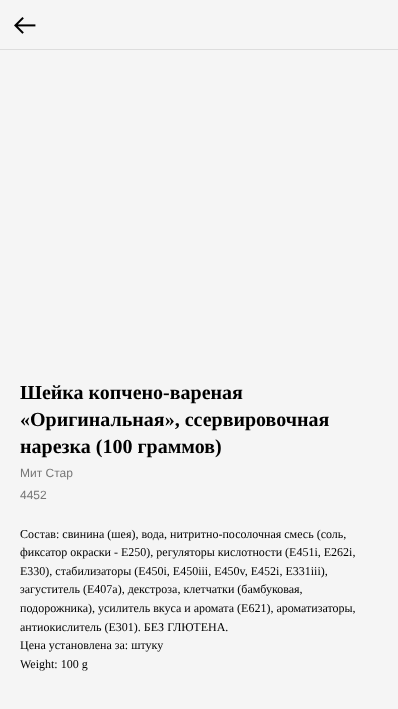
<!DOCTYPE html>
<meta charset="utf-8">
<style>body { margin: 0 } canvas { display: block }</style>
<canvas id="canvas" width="398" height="709"></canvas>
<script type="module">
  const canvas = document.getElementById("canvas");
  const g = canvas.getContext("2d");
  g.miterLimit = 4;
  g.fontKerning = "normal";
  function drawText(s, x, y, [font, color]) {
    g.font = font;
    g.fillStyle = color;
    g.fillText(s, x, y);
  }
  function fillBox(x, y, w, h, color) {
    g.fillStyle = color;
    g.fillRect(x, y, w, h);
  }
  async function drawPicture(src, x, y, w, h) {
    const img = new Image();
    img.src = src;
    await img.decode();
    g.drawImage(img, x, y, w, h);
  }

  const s1 = ["bold 20px Liberation Serif", "#000000"];
  const s2 = ["12px Liberation Sans", "#777777"];
  const s3 = ["12px Liberation Serif", "#000000"];

  fillBox(0, 0, 398, 709, "#F5F5F5");
  fillBox(0, 49, 398, 1, "#DDDDDD");
  await drawPicture("pic1.png", 14, 17, 22, 17);
  drawText("Шейка копчено-вареная", 20, 399, s1);
  drawText("«Оригинальная», ссервировочная", 20, 426, s1);
  drawText("нарезка (100 граммов)", 20, 453, s1);
  drawText("Мит Стар", 20, 477, s2);
  drawText("4452", 20, 499, s2);
  drawText("Состав: свинина (шея), вода, нитритно-посолочная смесь (соль,", 20, 538, s3);
  drawText("фиксатор окраски - Е250), регуляторы кислотности (E451i, E262i,", 20, 556, s3);
  drawText("E330), стабилизаторы (E450i, E450iii, E450v, E452i, E331iii),", 20, 575, s3);
  drawText("загуститель (E407a), декстроза, клетчатки (бамбуковая,", 20, 593, s3);
  drawText("подорожника), усилитель вкуса и аромата (Е621), ароматизаторы,", 20, 612, s3);
  drawText("антиокислитель (Е301). БЕЗ ГЛЮТЕНА.", 20, 631, s3);
  drawText("Цена установлена за: штуку", 20, 649, s3);
  drawText("Weight: 100 g", 20, 668, s3);
</script>
